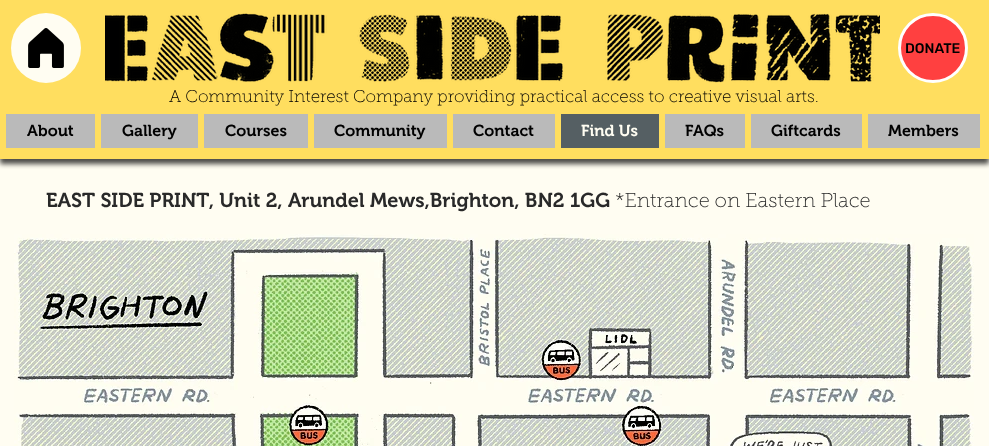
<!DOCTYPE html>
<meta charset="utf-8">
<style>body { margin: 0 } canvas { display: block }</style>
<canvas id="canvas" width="989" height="446"></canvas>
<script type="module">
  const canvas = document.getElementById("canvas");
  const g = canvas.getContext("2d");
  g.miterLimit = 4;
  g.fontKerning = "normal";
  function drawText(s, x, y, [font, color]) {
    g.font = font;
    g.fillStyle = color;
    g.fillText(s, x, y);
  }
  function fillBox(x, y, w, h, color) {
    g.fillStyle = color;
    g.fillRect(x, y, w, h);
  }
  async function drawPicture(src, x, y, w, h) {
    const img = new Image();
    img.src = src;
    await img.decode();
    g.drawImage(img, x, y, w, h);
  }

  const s1 = ["500 14px Rubik", "#000000"];
  const s2 = ["100 17px 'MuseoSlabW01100'", "#000000"];
  const s3 = ["600 16px 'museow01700'", "#000000"];
  const s4 = ["600 16px 'museow01700'", "#FFFDF2"];
  const s5 = ["600 20px 'museow01700'", "#292929"];
  const s6 = ["100 20px 'MuseoSlabW01100'", "#292929"];

  fillBox(0, 0, 989, 446, "#FFFDF2");
  g.fillStyle = "rgba(0, 0, 0, 0.7)";
  g.filter = "blur(2.5px)";
  g.beginPath();
  g.rect(0, 5, 989, 159);
  g.fill();
  g.filter = "none";
  fillBox(0, 0, 989, 159, "#FFDE5F");
  g.fillStyle = "#FFFDF2";
  g.beginPath();
  g.arc(46, 48, 35, 0, Math.PI * 2);
  g.fill();
  await drawPicture("pic1.png", 28, 28, 36, 40);
  await drawPicture("pic2.png", 105, 13, 775, 70);
  g.fillStyle = "#FF4040";
  g.beginPath();
  g.arc(933, 48, 33.5, 0, Math.PI * 2);
  g.fill();
  g.strokeStyle = "#FFFFFF";
  g.lineWidth = 3;
  g.stroke();
  drawText("DONATE", 905, 53, s1);
  drawText("A Community Interest Company providing practical access to creative visual arts.", 169, 102, s2);
  fillBox(6, 114, 89, 34, "#BABABA");
  drawText("About", 27, 136, s3);
  fillBox(101, 114, 97, 34, "#BABABA");
  drawText("Gallery", 122, 136, s3);
  fillBox(204, 114, 104, 34, "#BABABA");
  drawText("Courses", 225, 136, s3);
  fillBox(314, 114, 133, 34, "#BABABA");
  drawText("Community", 334, 136, s3);
  fillBox(453, 114, 102, 34, "#BABABA");
  drawText("Contact", 473, 136, s3);
  fillBox(561, 114, 98, 34, "#555F63");
  drawText("Find Us", 581, 136, s4);
  fillBox(665, 114, 80, 34, "#BABABA");
  drawText("FAQs", 685, 136, s3);
  fillBox(751, 114, 111, 34, "#BABABA");
  drawText("Giftcards", 771, 136, s3);
  fillBox(868, 114, 112, 34, "#BABABA");
  drawText("Members", 888, 136, s3);
  drawText("EAST SIDE PRINT, Unit 2, Arundel Mews,Brighton, BN2 1GG", 46, 207, s5);
  drawText("*Entrance on Eastern Place", 615, 207, s6);
  await drawPicture("pic3.png", 14, 234, 960, 212);
</script>
